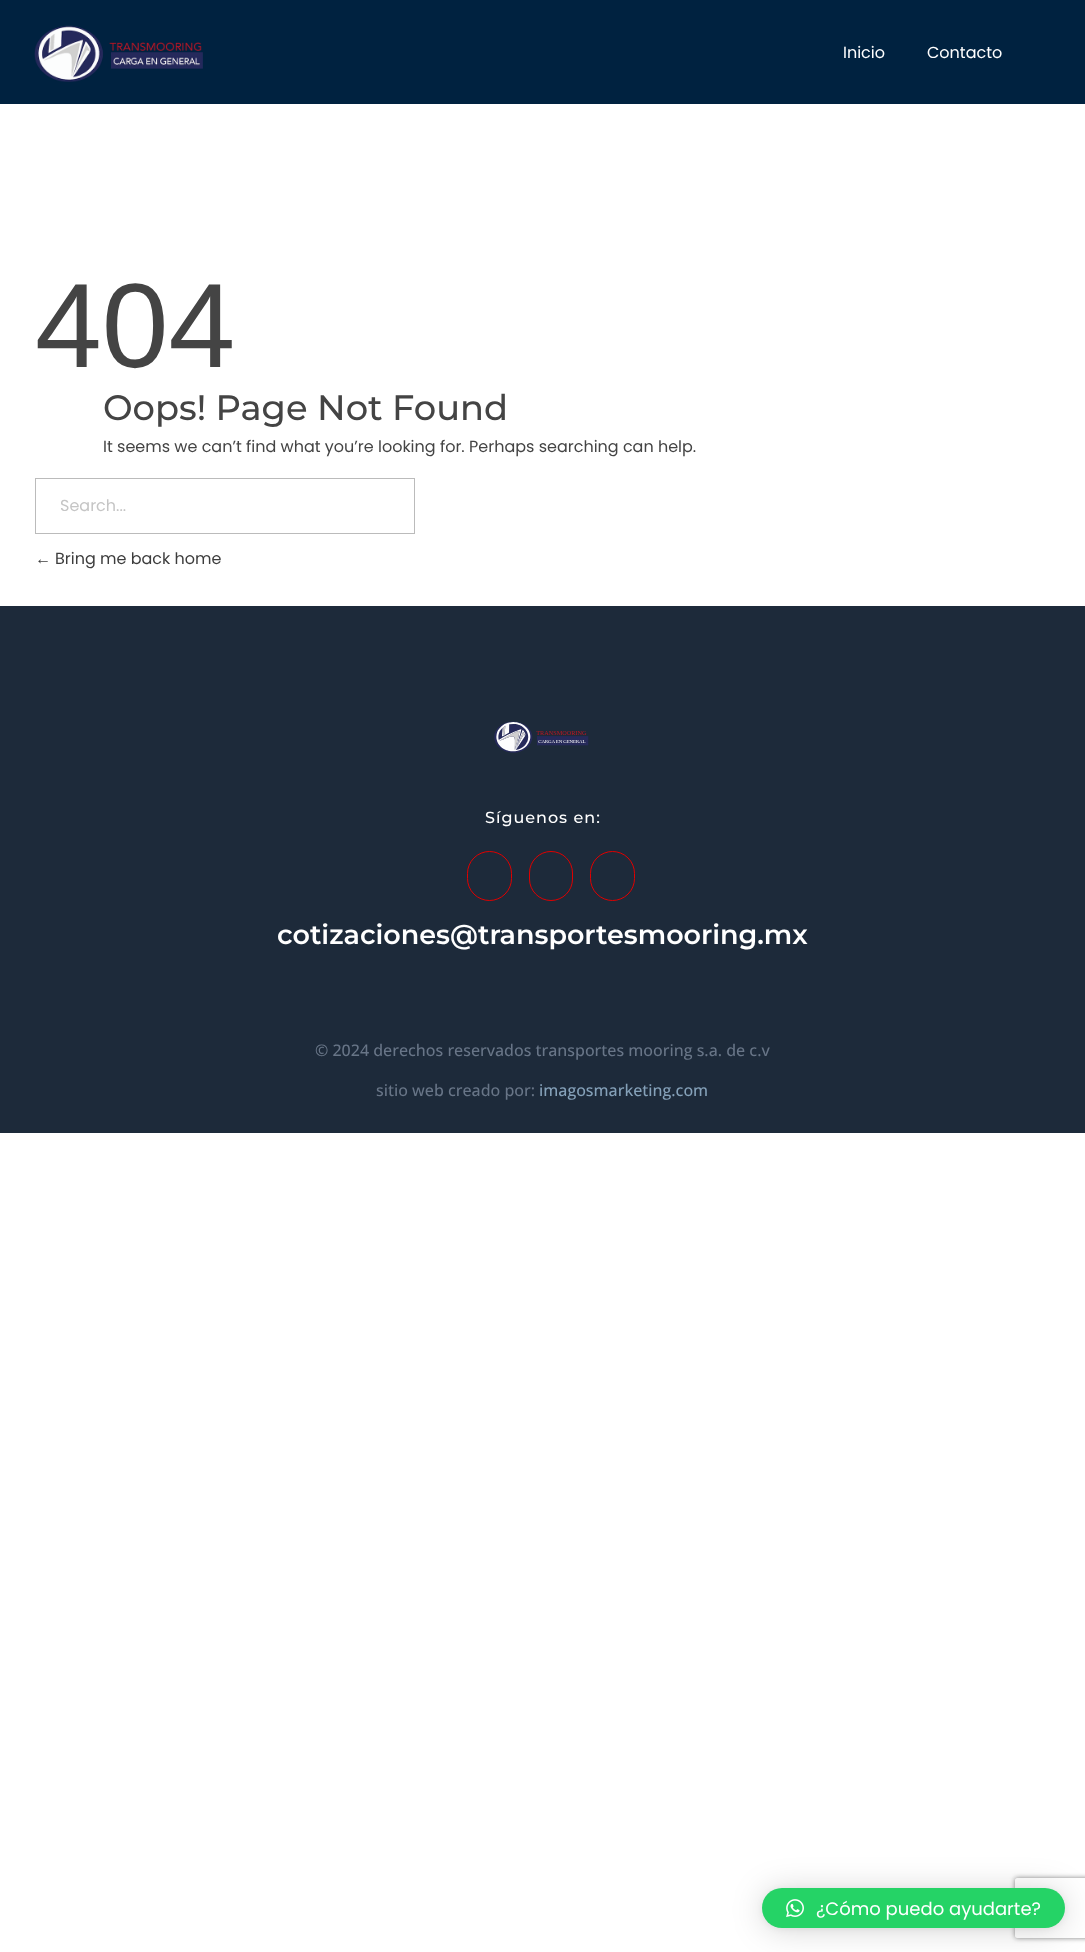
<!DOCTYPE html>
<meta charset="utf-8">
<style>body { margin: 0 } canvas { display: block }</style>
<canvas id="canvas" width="1085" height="1952"></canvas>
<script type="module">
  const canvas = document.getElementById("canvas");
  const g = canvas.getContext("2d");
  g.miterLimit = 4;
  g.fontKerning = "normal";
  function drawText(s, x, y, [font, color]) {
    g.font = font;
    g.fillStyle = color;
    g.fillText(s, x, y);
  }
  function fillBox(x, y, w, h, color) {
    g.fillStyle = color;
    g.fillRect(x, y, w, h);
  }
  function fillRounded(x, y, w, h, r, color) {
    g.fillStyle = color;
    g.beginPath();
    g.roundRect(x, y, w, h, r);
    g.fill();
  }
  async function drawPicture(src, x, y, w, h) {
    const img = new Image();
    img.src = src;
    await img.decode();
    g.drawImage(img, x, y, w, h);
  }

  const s1 = ["16px Poppins", "#FFFFFF"];
  const s2 = ["120px Liberation Sans", "#444444"];
  const s3 = ["500 35.25px Montserrat", "#444444"];
  const s4 = ["16px Poppins", "#444444"];
  const s5 = ["16px Poppins", "#C5C5C5"];
  const s6 = ["16px Liberation Sans", "#3D3D3D"];
  const s7 = ["16px Poppins", "#3D3D3D"];
  const s8 = ["500 16px Montserrat", "#FFFFFF"];
  const s9 = ["600 27px Montserrat", "#FFFFFF"];
  const s10 = ["500 16px Open Sans", "#687587"];
  const s11 = ["500 16px Open Sans", "#85A1B9"];
  const s12 = ["18px Poppins", "#FFFFFF"];

  fillBox(0, 0, 1085, 1952, "#FFFFFF");
  fillBox(0, 0, 1085, 104, "#002240");
  await drawPicture("pic1.png", 34, 25, 169, 57);
  drawText("Inicio", 843, 58, s1);
  drawText("Contacto", 927, 58, s1);
  drawText("404", 35, 367, s2);
  drawText("Oops! Page Not Found", 103, 420, s3);
  drawText("It seems we can’t find what you’re looking for. Perhaps searching can help.", 103, 452, s4);
  g.strokeStyle = "#BBBBBB";
  g.strokeRect(35.5, 478.5, 379, 55);
  drawText("Search...", 60, 511, s5);
  drawText("←", 35, 564, s6);
  drawText("Bring me back home", 55, 564, s7);
  fillBox(0, 606, 1085, 527, "#1D2A3A");
  await drawPicture("pic2.png", 494, 721, 95, 32);
  g.letterSpacing = "1px";
  drawText("Síguenos en:", 485, 823, s8);
  g.beginPath();
  g.roundRect(467.5, 851.5, 44, 49, 22);
  g.strokeStyle = "#E00000";
  g.stroke();
  g.beginPath();
  g.roundRect(529.5, 851.5, 43, 49, 21.5);
  g.stroke();
  g.beginPath();
  g.roundRect(590.5, 851.5, 44, 49, 22);
  g.stroke();
  g.letterSpacing = "0px";
  drawText("cotizaciones@transportesmooring.mx", 277, 944, s9);
  drawText("© 2024 derechos reservados transportes mooring s.a. de c.v", 315, 1056, s10);
  drawText("sitio web creado por:", 376, 1096, s10);
  drawText("imagosmarketing.com", 539, 1096, s11);
  g.fillStyle = "rgba(0, 0, 0, 0.16)";
  g.filter = "blur(16px)";
  g.beginPath();
  g.roundRect(762, 1890, 303, 40, 20);
  g.fill();
  g.filter = "none";
  g.fillStyle = "rgba(0, 0, 0, 0.06)";
  g.filter = "blur(3px)";
  g.beginPath();
  g.roundRect(762, 1889, 303, 40, 20);
  g.fill();
  g.filter = "none";
  g.save();
  g.beginPath();
  g.moveTo(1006, 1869);
  g.lineTo(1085, 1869);
  g.lineTo(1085, 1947);
  g.lineTo(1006, 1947);
  g.closePath();
  g.moveTo(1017, 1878);
  g.lineTo(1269, 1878);
  g.bezierCurveTo(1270, 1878, 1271, 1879, 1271, 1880);
  g.lineTo(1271, 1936);
  g.bezierCurveTo(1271, 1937, 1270, 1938, 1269, 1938);
  g.lineTo(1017, 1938);
  g.bezierCurveTo(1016, 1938, 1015, 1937, 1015, 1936);
  g.lineTo(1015, 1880);
  g.bezierCurveTo(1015, 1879, 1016, 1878, 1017, 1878);
  g.closePath();
  g.clip("evenodd");
  g.fillStyle = "#808080";
  g.filter = "blur(2.5px)";
  g.beginPath();
  g.roundRect(1015, 1878, 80, 60, 2);
  g.fill();
  g.filter = "none";
  g.restore();
  fillRounded(762, 1888, 303, 40, 20, "#25D366");
  await drawPicture("pic3.png", 786, 1899, 18, 19);
  drawText("¿Cómo puedo ayudarte?", 816, 1915, s12);
</script>
